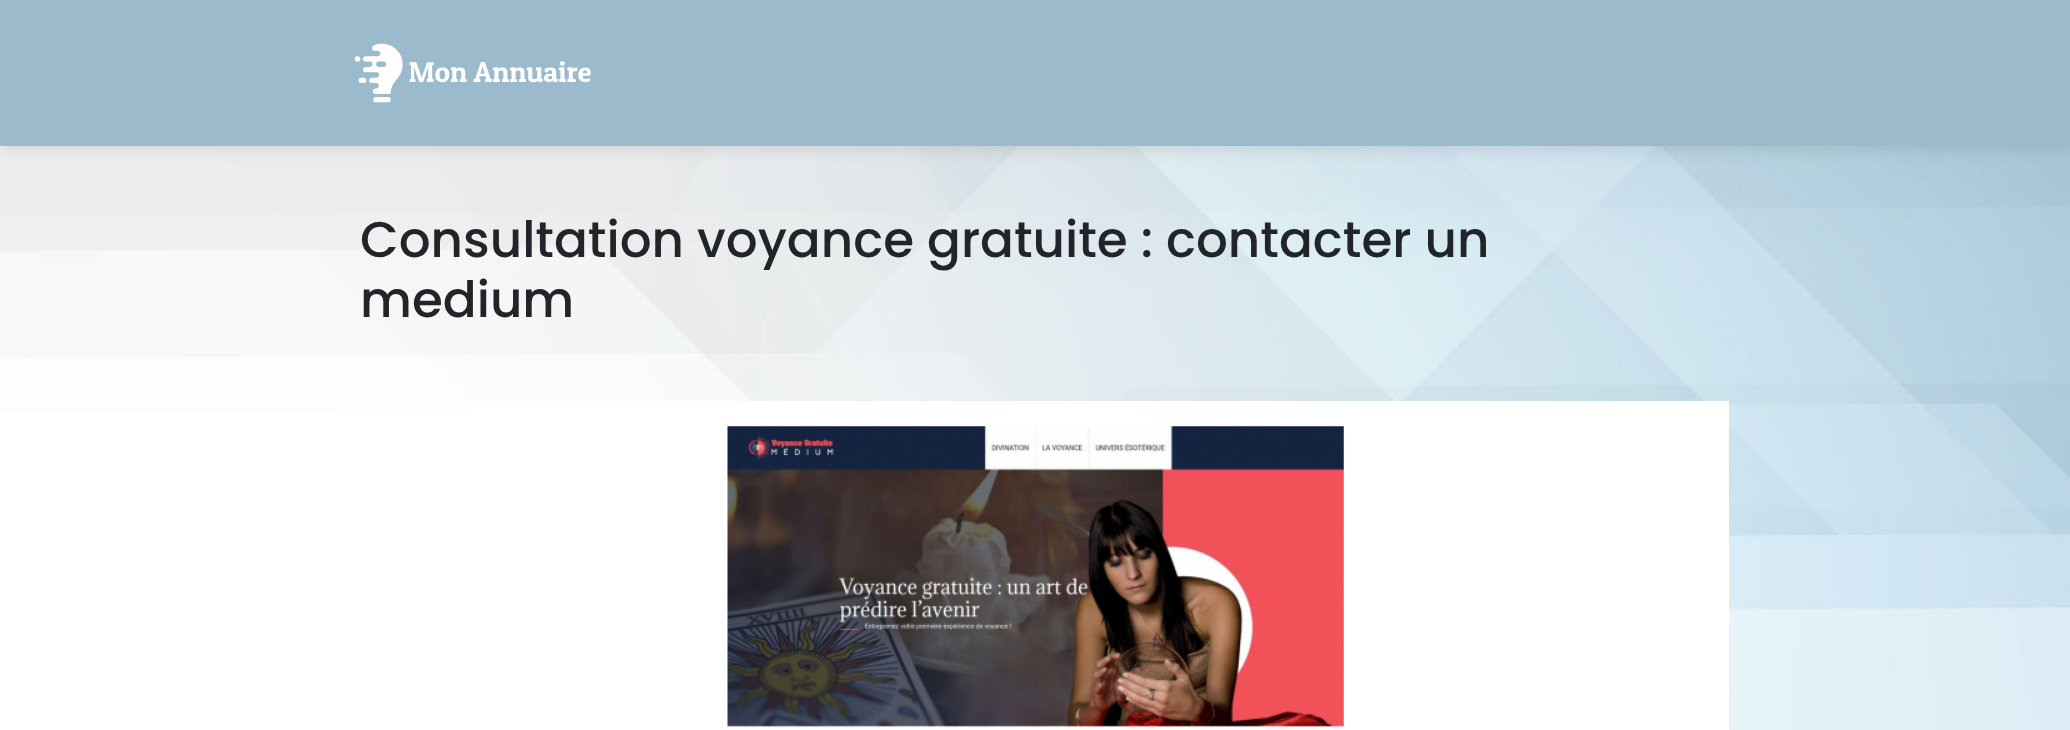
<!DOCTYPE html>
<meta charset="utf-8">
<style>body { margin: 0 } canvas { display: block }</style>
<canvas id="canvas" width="2070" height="730"></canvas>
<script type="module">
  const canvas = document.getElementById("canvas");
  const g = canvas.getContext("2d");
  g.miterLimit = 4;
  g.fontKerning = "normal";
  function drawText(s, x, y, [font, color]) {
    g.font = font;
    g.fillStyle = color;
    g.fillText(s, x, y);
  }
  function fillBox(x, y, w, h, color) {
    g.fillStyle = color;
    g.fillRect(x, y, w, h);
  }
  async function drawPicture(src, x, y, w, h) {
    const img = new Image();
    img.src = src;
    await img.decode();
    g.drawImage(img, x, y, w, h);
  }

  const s1 = ["500 50px Poppins", "#212529"];

  fillBox(0, 0, 2070, 730, "#FFFFFF");
  await drawPicture("pic1.png", 0, 146, 2070, 584);
  g.fillStyle = "rgba(0, 0, 0, 0.1)";
  g.filter = "blur(8px)";
  g.beginPath();
  g.rect(0, 3, 2070, 146);
  g.fill();
  g.filter = "none";
  fillBox(0, 0, 2070, 146, "#9BBACC");
  await drawPicture("pic2.png", 354, 43, 237, 60);
  drawText("Consultation voyance gratuite : contacter un", 360, 257, s1);
  drawText("medium", 360, 317, s1);
  fillBox(471, 401, 1258, 329, "#FFFFFF");
  await drawPicture("pic3.png", 727, 426, 617, 302);
</script>
